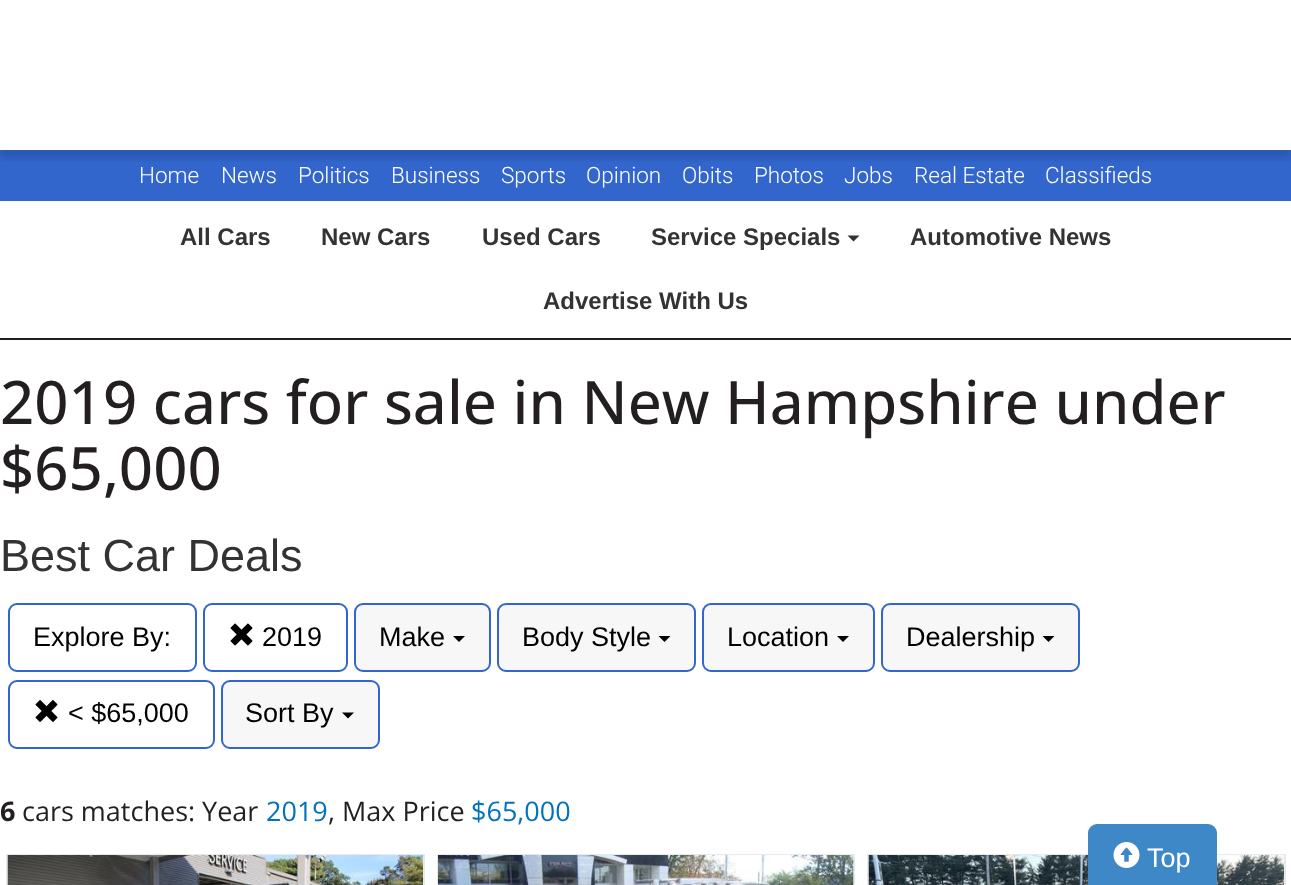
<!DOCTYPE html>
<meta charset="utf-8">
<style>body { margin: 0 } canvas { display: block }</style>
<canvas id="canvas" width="1291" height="885"></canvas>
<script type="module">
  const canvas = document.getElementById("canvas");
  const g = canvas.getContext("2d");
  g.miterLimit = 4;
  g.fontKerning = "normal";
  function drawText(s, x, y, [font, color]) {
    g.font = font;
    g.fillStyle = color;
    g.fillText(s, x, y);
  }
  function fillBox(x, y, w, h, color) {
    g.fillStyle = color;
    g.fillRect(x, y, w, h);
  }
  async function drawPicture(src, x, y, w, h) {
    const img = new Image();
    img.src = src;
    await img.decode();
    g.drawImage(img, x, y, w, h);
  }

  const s1 = ["300 22.5px Roboto", "#FFFFFF"];
  const s2 = ["bold 24px Liberation Sans", "#333333"];
  const s3 = ["500 60px Open Sans", "#231F20"];
  const s4 = ["45px Liberation Sans", "#333333"];
  const s5 = ["27px Liberation Sans", "#000000"];
  const s6 = ["bold 27px Open Sans", "#231F20"];
  const s7 = ["27px Open Sans", "#231F20"];
  const s8 = ["27px Open Sans", "#0073BD"];
  const s9 = ["27px Liberation Sans", "#FFFFFF"];

  fillBox(0, 0, 1291, 885, "#FFFFFF");
  fillBox(0, 150, 1291, 51, "#3266CC");
  g.save();
  g.beginPath();
  g.rect(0, 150, 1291, 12);
  g.clip();
  g.fillStyle = "rgba(0, 0, 0, 0.14)";
  g.filter = "blur(4px)";
  g.beginPath();
  g.rect(0, 8, 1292, 150);
  g.fill();
  g.filter = "none";
  g.restore();
  drawText("Home", 139, 183, s1);
  drawText("News", 221, 183, s1);
  drawText("Politics", 298, 183, s1);
  drawText("Business", 391, 183, s1);
  drawText("Sports", 501, 183, s1);
  drawText("Opinion", 586, 183, s1);
  drawText("Obits", 682, 183, s1);
  drawText("Photos", 754, 183, s1);
  drawText("Jobs", 844, 183, s1);
  drawText("Real Estate", 914, 183, s1);
  drawText("Classifieds", 1045, 183, s1);
  fillBox(0, 338, 1291, 2, "#1E1E1E");
  drawText("All Cars", 180, 245, s2);
  drawText("New Cars", 321, 245, s2);
  drawText("Used Cars", 482, 245, s2);
  drawText("Service Specials", 651, 245, s2);
  g.beginPath();
  g.moveTo(847.5, 235.5);
  g.lineTo(859.5, 235.5);
  g.lineTo(853.5, 241.5);
  g.closePath();
  g.fill();
  drawText("Automotive News", 910, 245, s2);
  drawText("Advertise With Us", 543, 309, s2);
  drawText("2019 cars for sale in New Hampshire under", 0, 424, s3);
  drawText("$65,000", 0, 490, s3);
  drawText("Best Car Deals", 0, 571, s4);
  g.beginPath();
  g.roundRect(9, 604, 187, 67, 8);
  g.strokeStyle = "#3266CC";
  g.lineWidth = 2;
  g.stroke();
  drawText("Explore By:", 33, 646, s5);
  g.beginPath();
  g.roundRect(204, 604, 143, 67, 8);
  g.stroke();
  await drawPicture("pic1.png", 230, 623, 23, 23);
  drawText("2019", 262, 646, s5);
  g.fillStyle = "#F7F7F7";
  g.beginPath();
  g.roundRect(355, 604, 135, 67, 8);
  g.fill();
  g.stroke();
  drawText("Make", 379, 646, s5);
  g.beginPath();
  g.moveTo(453, 636);
  g.lineTo(465, 636);
  g.lineTo(459, 642);
  g.closePath();
  g.fill();
  g.fillStyle = "#F7F7F7";
  g.beginPath();
  g.roundRect(498, 604, 197, 67, 8);
  g.fill();
  g.stroke();
  drawText("Body Style", 522, 646, s5);
  g.beginPath();
  g.moveTo(658.5, 636);
  g.lineTo(670.5, 636);
  g.lineTo(664.5, 642);
  g.closePath();
  g.fill();
  g.fillStyle = "#F7F7F7";
  g.beginPath();
  g.roundRect(703, 604, 171, 67, 8);
  g.fill();
  g.stroke();
  drawText("Location", 727, 646, s5);
  g.beginPath();
  g.moveTo(837, 636);
  g.lineTo(849, 636);
  g.lineTo(843, 642);
  g.closePath();
  g.fill();
  g.fillStyle = "#F7F7F7";
  g.beginPath();
  g.roundRect(882, 604, 197, 67, 8);
  g.fill();
  g.stroke();
  drawText("Dealership", 906, 646, s5);
  g.beginPath();
  g.moveTo(1042.5, 636);
  g.lineTo(1054.5, 636);
  g.lineTo(1048.5, 642);
  g.closePath();
  g.fill();
  g.beginPath();
  g.roundRect(9, 681, 205, 67, 8);
  g.stroke();
  await drawPicture("pic2.png", 35, 700, 23, 22);
  drawText("< $65,000", 68, 722, s5);
  g.fillStyle = "#F7F7F7";
  g.beginPath();
  g.roundRect(222, 681, 157, 67, 8);
  g.fill();
  g.stroke();
  drawText("Sort By", 245, 722, s5);
  g.beginPath();
  g.moveTo(342, 712.5);
  g.lineTo(354, 712.5);
  g.lineTo(348, 718.5);
  g.closePath();
  g.fill();
  drawText("6", 0, 821, s6);
  drawText("cars matches: Year", 22, 821, s7);
  drawText("2019", 266, 821, s8);
  drawText(", Max Price", 328, 821, s7);
  drawText("$65,000", 471, 821, s8);
  g.strokeStyle = "#E6EAEA";
  g.strokeRect(7, 855, 417, 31);
  await drawPicture("pic3.png", 7, 855, 416, 30);
  g.strokeRect(438, 855, 416, 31);
  await drawPicture("pic4.png", 438, 855, 416, 30);
  g.strokeRect(868, 855, 417, 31);
  await drawPicture("pic5.png", 868, 855, 416, 30);
  g.fillStyle = "#3F88C7";
  g.beginPath();
  g.roundRect(1089, 825, 127, 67, 8);
  g.fill();
  g.strokeStyle = "#3F88C7";
  g.stroke();
  await drawPicture("pic6.png", 1113, 842, 27, 26);
  drawText("Top", 1147, 867, s9);
</script>
